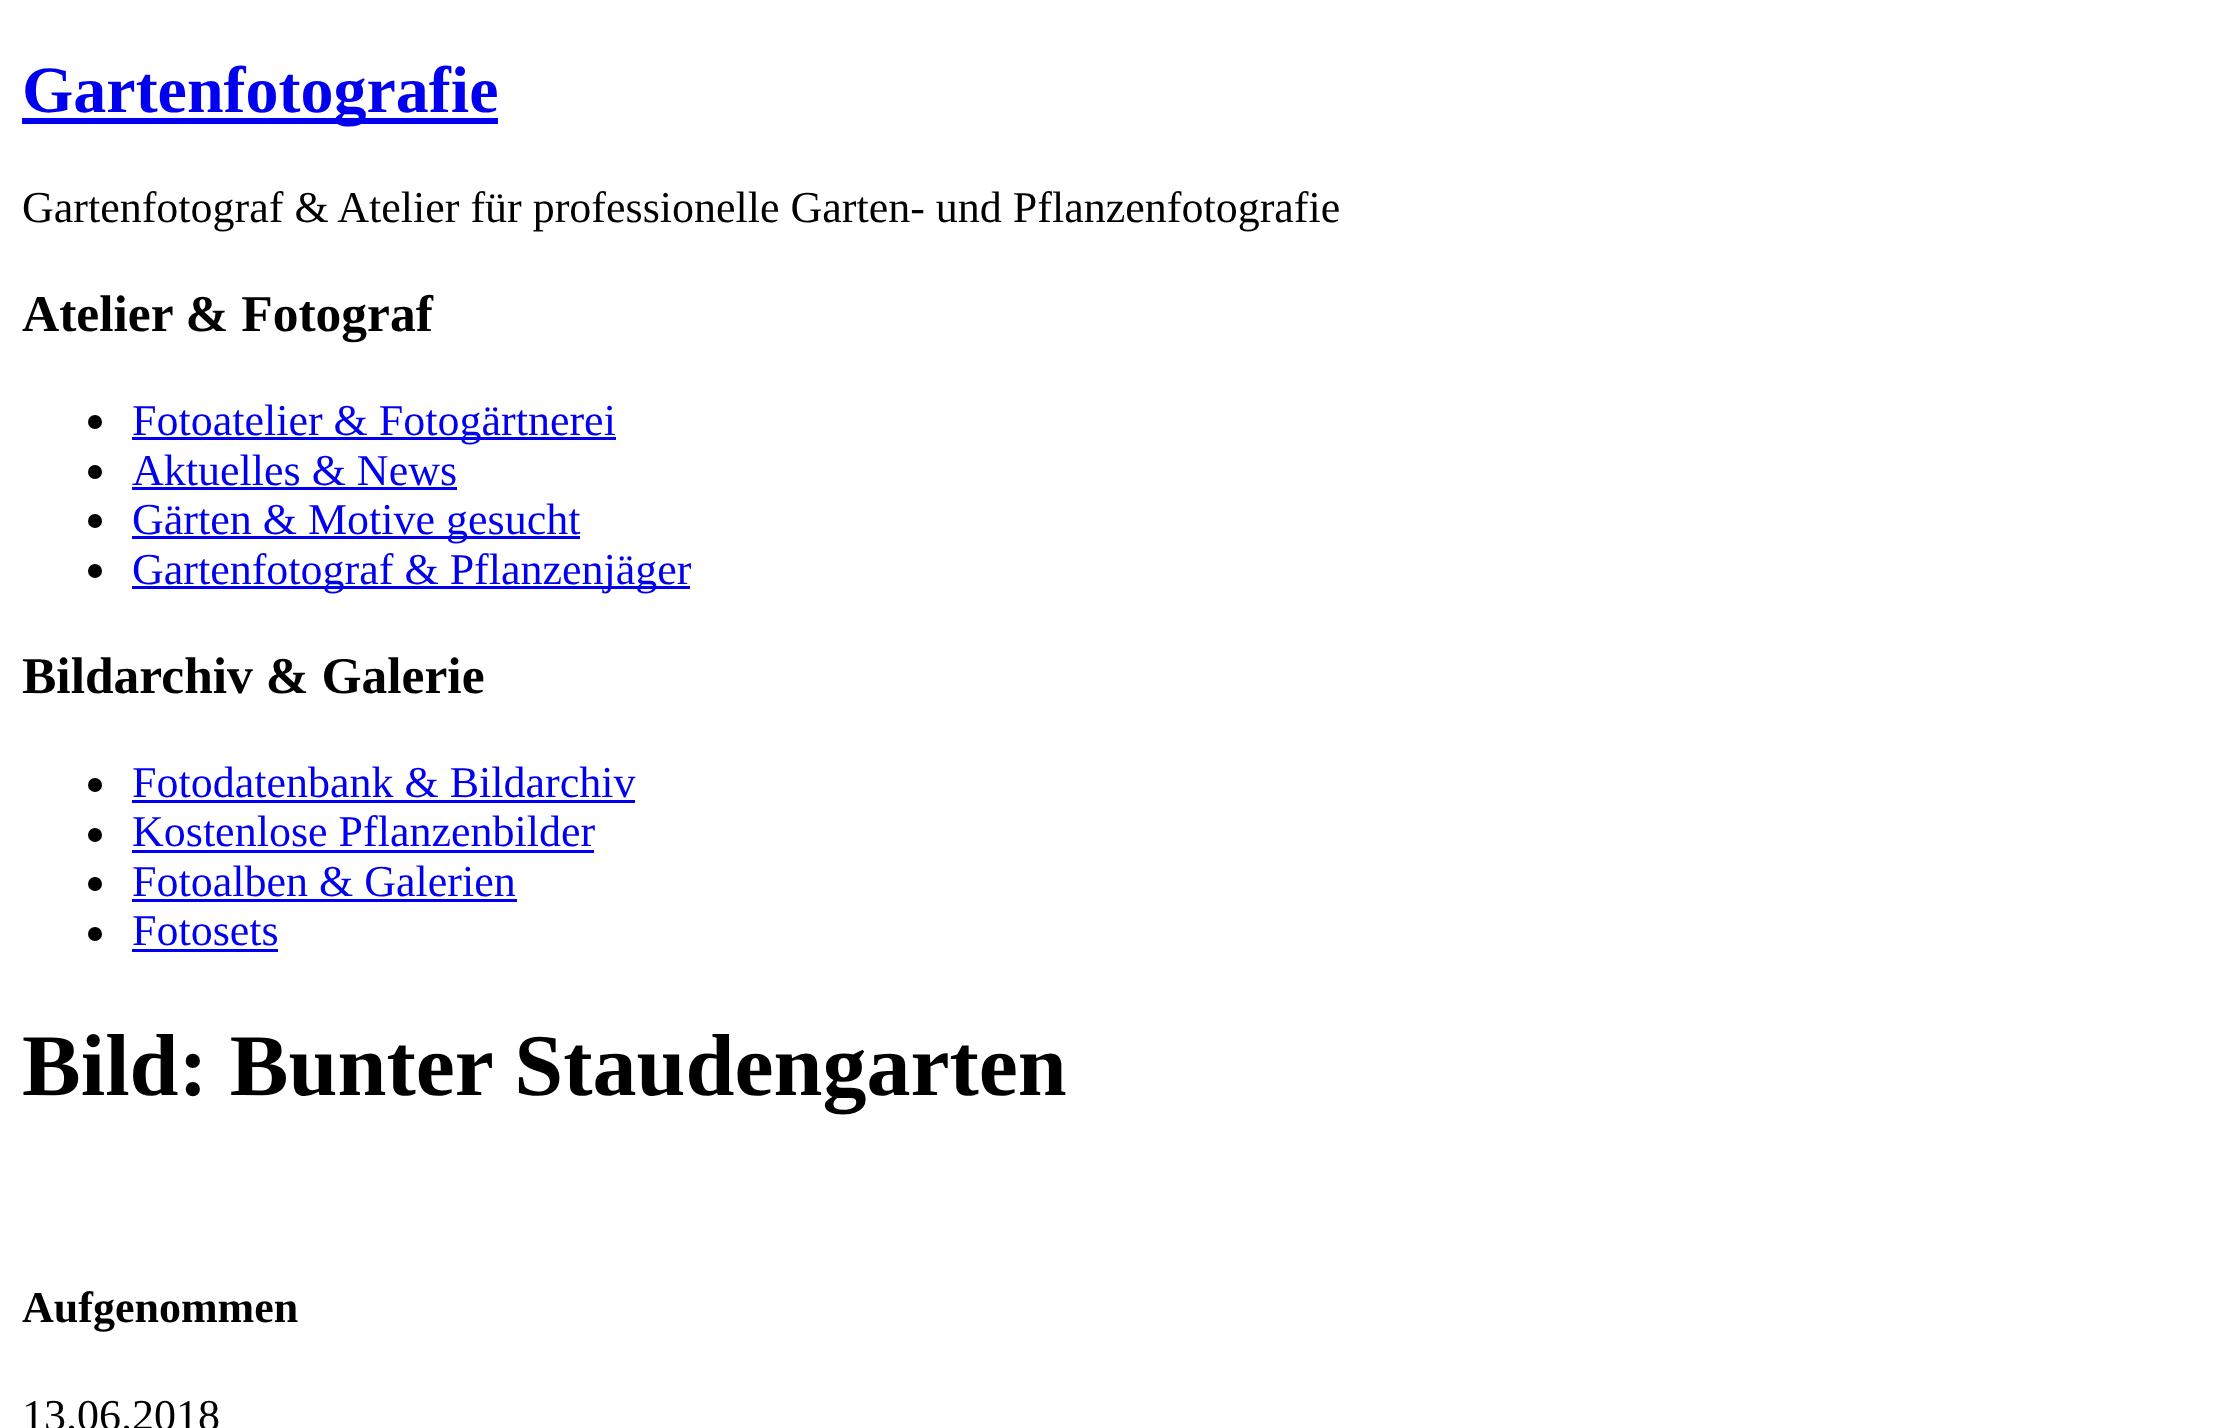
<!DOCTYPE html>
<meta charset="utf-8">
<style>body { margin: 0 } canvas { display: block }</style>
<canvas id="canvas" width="2239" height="1428"></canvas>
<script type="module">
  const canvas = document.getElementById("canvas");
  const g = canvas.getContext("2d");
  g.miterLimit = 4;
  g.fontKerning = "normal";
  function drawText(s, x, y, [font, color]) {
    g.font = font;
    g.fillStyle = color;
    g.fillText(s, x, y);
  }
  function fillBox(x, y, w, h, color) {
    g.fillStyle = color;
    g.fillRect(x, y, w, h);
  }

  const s1 = ["bold 66px Liberation Serif", "#0000EE"];
  const s2 = ["44px Liberation Serif", "#000000"];
  const s3 = ["bold 51.5px Liberation Serif", "#000000"];
  const s4 = ["44px Liberation Serif", "#0000EE"];
  const s5 = ["bold 88px Liberation Serif", "#000000"];
  const s6 = ["bold 44px Liberation Serif", "#000000"];

  fillBox(0, 0, 2239, 1428, "#FFFFFF");
  fillBox(22, 118, 476, 6, "#0000EE");
  drawText("Gartenfotografie", 22, 112, s1);
  drawText("Gartenfotograf & Atelier für professionelle Garten- und Pflanzenfotografie", 22, 222, s2);
  drawText("Atelier & Fotograf", 22, 331, s3);
  g.beginPath();
  g.arc(95, 422, 7, 0, Math.PI * 2);
  g.fill();
  fillBox(132, 437, 484, 3, "#0000EE");
  drawText("Fotoatelier & Fotogärtnerei", 132, 435, s4);
  g.fillStyle = "#000000";
  g.beginPath();
  g.arc(95, 472, 7, 0, Math.PI * 2);
  g.fill();
  drawText("Aktuelles & News", 132, 485, s4);
  fillBox(132, 487, 325, 3, "#0000EE");
  g.fillStyle = "#000000";
  g.beginPath();
  g.arc(95, 521, 7, 0, Math.PI * 2);
  g.fill();
  fillBox(132, 536, 448, 3, "#0000EE");
  drawText("Gärten & Motive gesucht", 132, 534, s4);
  g.fillStyle = "#000000";
  g.beginPath();
  g.arc(95, 571, 7, 0, Math.PI * 2);
  g.fill();
  fillBox(132, 586, 558, 3, "#0000EE");
  drawText("Gartenfotograf & Pflanzenjäger", 132, 584, s4);
  drawText("Bildarchiv & Galerie", 22, 693, s3);
  g.beginPath();
  g.arc(95, 785, 7, 0, Math.PI * 2);
  g.fill();
  drawText("Fotodatenbank & Bildarchiv", 132, 797, s4);
  fillBox(132, 800, 503, 3, "#0000EE");
  g.fillStyle = "#000000";
  g.beginPath();
  g.arc(95, 835, 7, 0, Math.PI * 2);
  g.fill();
  drawText("Kostenlose Pflanzenbilder", 132, 846, s4);
  fillBox(132, 850, 462, 3, "#0000EE");
  g.fillStyle = "#000000";
  g.beginPath();
  g.arc(95, 884, 7, 0, Math.PI * 2);
  g.fill();
  drawText("Fotoalben & Galerien", 132, 896, s4);
  fillBox(132, 899, 385, 3, "#0000EE");
  g.fillStyle = "#000000";
  g.beginPath();
  g.arc(95, 934, 7, 0, Math.PI * 2);
  g.fill();
  drawText("Fotosets", 132, 945, s4);
  fillBox(132, 949, 146, 3, "#0000EE");
  drawText("Bild: Bunter Staudengarten", 22, 1095, s5);
  drawText("Aufgenommen", 22, 1322, s6);
  drawText("13.06.2018", 22, 1430, s2);
</script>
